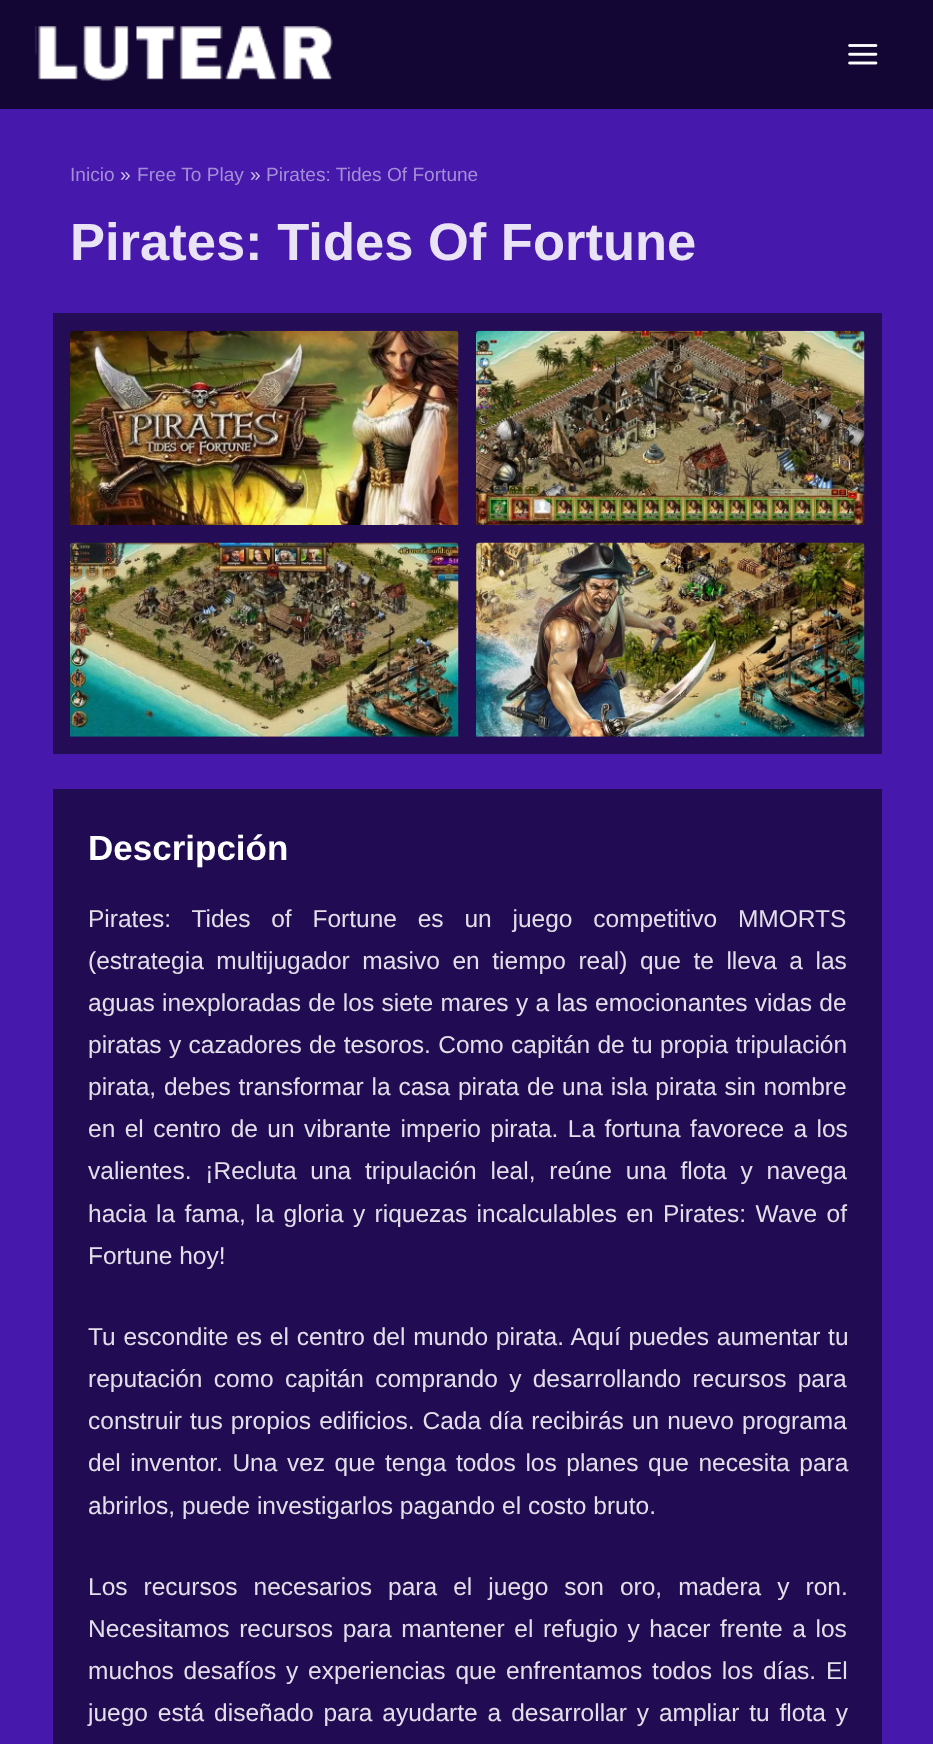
<!DOCTYPE html>
<meta charset="utf-8">
<style>body { margin: 0 } canvas { display: block }</style>
<canvas id="canvas" width="933" height="1744"></canvas>
<script type="module">
  const canvas = document.getElementById("canvas");
  const g = canvas.getContext("2d");
  g.miterLimit = 4;
  g.fontKerning = "normal";
  function drawText(s, x, y, [font, color]) {
    g.font = font;
    g.fillStyle = color;
    g.fillText(s, x, y);
  }
  function fillBox(x, y, w, h, color) {
    g.fillStyle = color;
    g.fillRect(x, y, w, h);
  }
  async function drawPicture(src, x, y, w, h) {
    const img = new Image();
    img.src = src;
    await img.decode();
    g.drawImage(img, x, y, w, h);
  }

  const s1 = ["19.1px Liberation Sans", "#A48ED6"];
  const s2 = ["19.1px Liberation Sans", "#D3C8EB"];
  const s3 = ["bold 52.5px Liberation Sans", "#E9E3F5"];
  const s4 = ["bold 35px Liberation Sans", "#FFFFFF"];
  const s5 = ["24.5px Liberation Sans", "#E2DFE9"];

  fillBox(0, 0, 933, 1744, "#4618AC");
  fillBox(0, 0, 933, 109, "#140634");
  await drawPicture("pic1.png", 35, 26, 298, 55);
  await drawPicture("pic2.png", 848, 44, 30, 21);
  drawText("Inicio", 70, 181, s1);
  drawText("»", 120, 181, s2);
  drawText("Free To Play", 137, 181, s1);
  drawText("»", 250, 181, s2);
  drawText("Pirates: Tides Of Fortune", 266, 181, s1);
  drawText("Pirates: Tides Of Fortune", 70, 260, s3);
  fillBox(53, 313, 829, 441, "#240C56");
  await drawPicture("pic3.png", 70, 330, 389, 195);
  await drawPicture("pic4.png", 476, 330, 389, 195);
  await drawPicture("pic5.png", 70, 542, 389, 195);
  await drawPicture("pic6.png", 476, 542, 389, 195);
  fillBox(53, 789, 829, 955, "#210B53");
  drawText("Descripción", 88, 860, s4);
  g.wordSpacing = "14px";
  drawText("Pirates: Tides of Fortune es un juego competitivo MMORTS", 88, 927, s5);
  g.wordSpacing = "5.75px";
  drawText("(estrategia multijugador masivo en tiempo real) que te lleva a las", 88, 969, s5);
  g.wordSpacing = "0.5px";
  drawText("aguas inexploradas de los siete mares y a las emocionantes vidas de", 88, 1011, s5);
  g.wordSpacing = "0.6px";
  drawText("piratas y cazadores de tesoros. Como capitán de tu propia tripulación", 88, 1053, s5);
  g.wordSpacing = "1px";
  drawText("pirata, debes transformar la casa pirata de una isla pirata sin nombre", 88, 1095, s5);
  g.wordSpacing = "2.6px";
  drawText("en el centro de un vibrante imperio pirata. La fortuna favorece a los", 88, 1137, s5);
  g.wordSpacing = "7px";
  drawText("valientes. ¡Recluta una tripulación leal, reúne una flota y navega", 88, 1179, s5);
  g.wordSpacing = "2.6px";
  drawText("hacia la fama, la gloria y riquezas incalculables en Pirates: Wave of", 88, 1222, s5);
  g.wordSpacing = "0px";
  drawText("Fortune hoy!", 88, 1264, s5);
  g.wordSpacing = "1px";
  drawText("Tu escondite es el centro del mundo pirata. Aquí puedes aumentar tu", 88, 1345, s5);
  g.wordSpacing = "4.5px";
  drawText("reputación como capitán comprando y desarrollando recursos para", 88, 1387, s5);
  g.wordSpacing = "1.25px";
  drawText("construir tus propios edificios. Cada día recibirás un nuevo programa", 88, 1429, s5);
  g.wordSpacing = "2.75px";
  drawText("del inventor. Una vez que tenga todos los planes que necesita para", 88, 1471, s5);
  g.wordSpacing = "0px";
  drawText("abrirlos, puede investigarlos pagando el costo bruto.", 88, 1514, s5);
  g.wordSpacing = "9.25px";
  drawText("Los recursos necesarios para el juego son oro, madera y ron.", 88, 1595, s5);
  g.wordSpacing = "2.75px";
  drawText("Necesitamos recursos para mantener el refugio y hacer frente a los", 88, 1637, s5);
  g.wordSpacing = "3px";
  drawText("muchos desafíos y experiencias que enfrentamos todos los días. El", 88, 1679, s5);
  g.wordSpacing = "3.1px";
  drawText("juego está diseñado para ayudarte a desarrollar y ampliar tu flota y", 88, 1721, s5);
</script>
